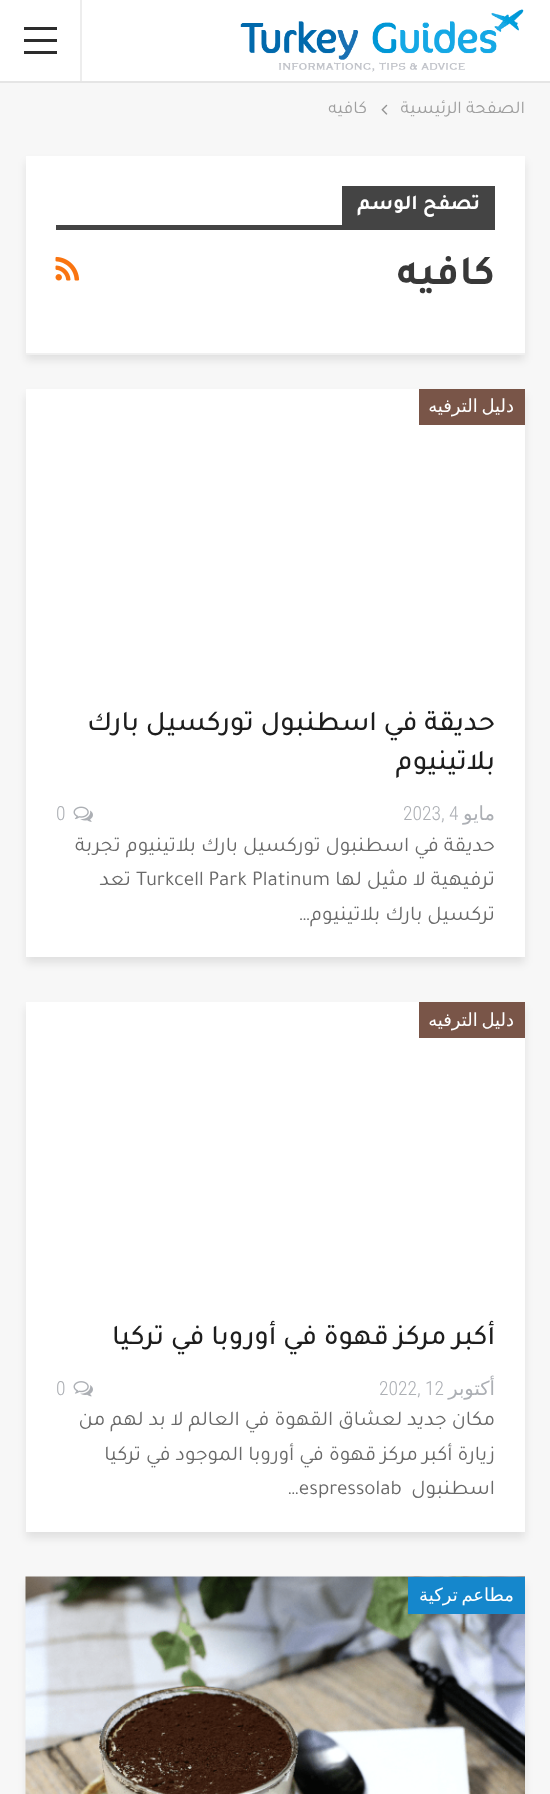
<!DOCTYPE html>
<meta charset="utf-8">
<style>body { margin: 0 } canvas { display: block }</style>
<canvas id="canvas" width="550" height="1794"></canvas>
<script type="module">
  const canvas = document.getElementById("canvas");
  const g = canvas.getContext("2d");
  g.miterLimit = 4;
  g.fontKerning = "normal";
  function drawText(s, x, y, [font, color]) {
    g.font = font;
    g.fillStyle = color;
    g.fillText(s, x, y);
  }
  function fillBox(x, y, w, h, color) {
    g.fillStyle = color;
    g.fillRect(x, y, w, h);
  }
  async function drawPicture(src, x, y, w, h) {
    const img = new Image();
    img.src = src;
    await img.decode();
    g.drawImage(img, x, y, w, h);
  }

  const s1 = ["18px Tajawal", "#9E9E9E"];
  const s2 = ["bold 21px Tajawal", "#FFFFFF"];
  const s3 = ["bold 42px Tajawal", "#383838"];
  const s4 = ["18px DejaVu Sans", "#FFFFFF"];
  const s5 = ["500 28.5px Tajawal", "#1D1D1D"];
  const s6 = ["19.5px DejaVu Sans", "#ACAFB4"];
  const s7 = ["300 19.5px Roboto Condensed", "#ACAFB4"];
  const s8 = ["21px Tajawal", "#696969"];

  fillBox(0, 0, 550, 1794, "#F7F7F7");
  fillBox(0, 0, 550, 81, "#FFFFFF");
  fillBox(0, 81, 550, 2, "#E5E5E5");
  await drawPicture("pic1.png", 240, 9, 284, 63);
  fillBox(80, 0, 2, 81, "#EDEDED");
  fillBox(24, 39, 33, 3, "#2C2C2C");
  fillBox(24, 27, 33, 3, "#2C2C2C");
  fillBox(24, 51, 33, 3, "#2C2C2C");
  g.direction = "rtl";
  drawText("الصفحة الرئيسية", 525, 113, s1);
  await drawPicture("pic2.png", 381, 104, 7, 11);
  drawText("كافيه", 367, 113, s1);
  g.fillStyle = "rgba(0, 0, 0, 0.09)";
  g.filter = "blur(4px)";
  g.beginPath();
  g.rect(26, 162, 499, 198);
  g.fill();
  g.filter = "none";
  fillBox(26, 156, 499, 197, "#FFFFFF");
  fillBox(26, 353, 499, 2, "#F0F0F0");
  fillBox(342, 186, 153, 39, "#444444");
  drawText("تصفح الوسم", 480, 209, s2);
  fillBox(56, 225, 439, 5, "#444444");
  drawText("كافيه", 495, 284, s3);
  await drawPicture("pic3.png", 55, 256, 25, 25);
  g.fillStyle = "rgba(0, 0, 0, 0.09)";
  g.filter = "blur(4px)";
  g.beginPath();
  g.rect(26, 395, 499, 568);
  g.fill();
  g.filter = "none";
  fillBox(26, 389, 499, 568, "#FFFFFF");
  fillBox(419, 389, 106, 36, "#795548");
  g.wordSpacing = "-2px";
  drawText("دليل الترفيه", 514, 412, s4);
  g.wordSpacing = "0px";
  drawText("حديقة في اسطنبول توركسيل بارك", 495, 730, s5);
  drawText("بلاتينيوم", 495, 769, s5);
  drawText("مايو", 495, 820, s6);
  g.direction = "ltr";
  drawText("2023, 4", 403, 820, s7);
  await drawPicture("pic4.png", 73, 806, 20, 16);
  drawText("0", 56, 820, s7);
  g.direction = "rtl";
  drawText("حديقة في اسطنبول توركسيل بارك بلاتينيوم تجربة", 495, 851, s8);
  drawText("ترفيهية لا مثيل لها", 495, 885, s8);
  g.direction = "ltr";
  drawText("Turkcell Park Platinum", 136, 885, s8);
  g.direction = "rtl";
  drawText("تعد", 131, 885, s8);
  drawText("تركسيل بارك بلاتينيوم…", 495, 920, s8);
  g.fillStyle = "rgba(0, 0, 0, 0.09)";
  g.filter = "blur(4px)";
  g.beginPath();
  g.rect(26, 1008, 499, 530);
  g.fill();
  g.filter = "none";
  fillBox(26, 1002, 499, 530, "#FFFFFF");
  fillBox(419, 1002, 106, 36, "#795548");
  g.wordSpacing = "-2px";
  drawText("دليل الترفيه", 514, 1026, s4);
  g.wordSpacing = "0px";
  drawText("أكبر مركز قهوة في أوروبا في تركيا", 495, 1344, s5);
  drawText("أكتوبر", 495, 1395, s6);
  g.direction = "ltr";
  drawText("2022, 12", 379, 1395, s7);
  await drawPicture("pic5.png", 73, 1381, 20, 16);
  drawText("0", 56, 1395, s7);
  g.direction = "rtl";
  drawText("مكان جديد لعشاق القهوة في العالم لا بد لهم من", 495, 1425, s8);
  drawText("زيارة أكبر مركز قهوة في أوروبا الموجود في تركيا", 495, 1460, s8);
  drawText("اسطنبول", 495, 1494, s8);
  g.direction = "ltr";
  drawText("…espressolab", 287, 1494, s8);
  g.fillStyle = "rgba(0, 0, 0, 0.09)";
  g.filter = "blur(4px)";
  g.beginPath();
  g.rect(26, 1583, 499, 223);
  g.fill();
  g.filter = "none";
  await drawPicture("pic6.png", 25, 1576, 500, 218);
  fillBox(408, 1577, 117, 37, "#1587CC");
  g.wordSpacing = "-2px";
  g.direction = "rtl";
  drawText("مطاعم تركية", 514, 1601, s4);
</script>
